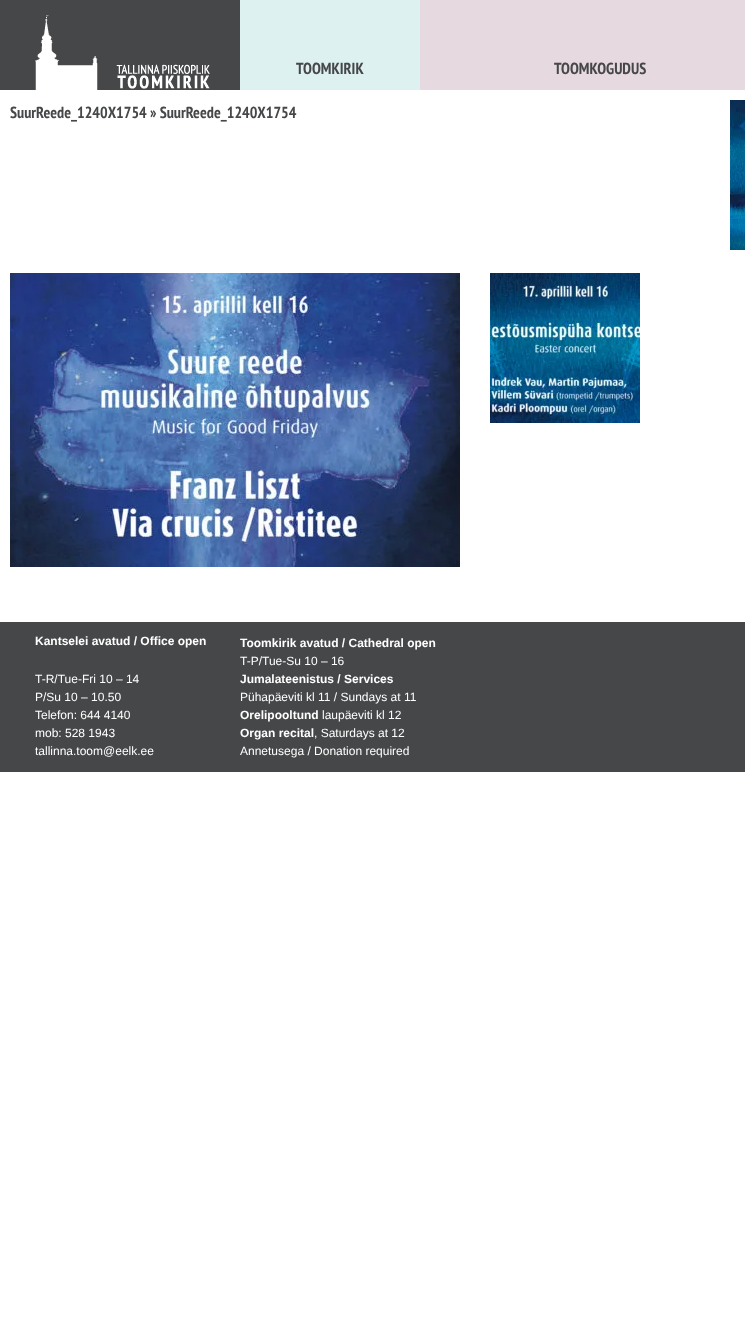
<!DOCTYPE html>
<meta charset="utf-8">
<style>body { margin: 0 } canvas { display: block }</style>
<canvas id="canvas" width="745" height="1318"></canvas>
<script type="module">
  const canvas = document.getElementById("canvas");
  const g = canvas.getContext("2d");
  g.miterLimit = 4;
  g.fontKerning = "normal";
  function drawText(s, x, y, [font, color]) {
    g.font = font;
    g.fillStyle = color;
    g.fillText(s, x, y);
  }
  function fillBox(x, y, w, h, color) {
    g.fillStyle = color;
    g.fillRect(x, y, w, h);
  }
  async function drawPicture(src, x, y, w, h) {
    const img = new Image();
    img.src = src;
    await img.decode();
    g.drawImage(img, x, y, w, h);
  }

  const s1 = ["bold 16px PT Sans Narrow", "#464749"];
  const s2 = ["bold 12px Liberation Sans", "#FFFFFF"];
  const s3 = ["12px Liberation Sans", "#FFFFFF"];

  fillBox(0, 0, 745, 1318, "#FFFFFF");
  fillBox(0, 0, 240, 90, "#464749");
  await drawPicture("pic1.png", 10, 0, 200, 90);
  fillBox(240, 0, 180, 90, "#DDF1F1");
  drawText("TOOMKIRIK", 296, 74, s1);
  fillBox(420, 0, 325, 90, "#E6D9E0");
  drawText("TOOMKOGUDUS", 554, 74, s1);
  drawText("SuurReede_1240X1754 » SuurReede_1240X1754", 10, 118, s1);
  await drawPicture("pic2.png", 730, 100, 15, 150);
  await drawPicture("pic3.png", 10, 273, 450, 294);
  await drawPicture("pic4.png", 490, 273, 150, 150);
  fillBox(0, 622, 745, 150, "#464749");
  drawText("Kantselei avatud / Office open", 35, 645, s2);
  drawText("T-R/Tue-Fri 10 – 14", 35, 683, s3);
  drawText("P/Su 10 – 10.50", 35, 701, s3);
  drawText("Telefon: 644 4140", 35, 719, s3);
  drawText("mob: 528 1943", 35, 737, s3);
  drawText("tallinna.toom@eelk.ee", 35, 755, s3);
  drawText("Toomkirik avatud / Cathedral open", 240, 647, s2);
  drawText("T-P/Tue-Su 10 – 16", 240, 665, s3);
  drawText("Jumalateenistus / Services", 240, 683, s2);
  drawText("Pühapäeviti kl 11 / Sundays at 11", 240, 701, s3);
  drawText("Orelipooltund", 240, 719, s2);
  drawText("laupäeviti kl 12", 322, 719, s3);
  drawText("Organ recital", 240, 737, s2);
  drawText(", Saturdays at 12", 314, 737, s3);
  drawText("Annetusega / Donation required", 240, 755, s3);
</script>
